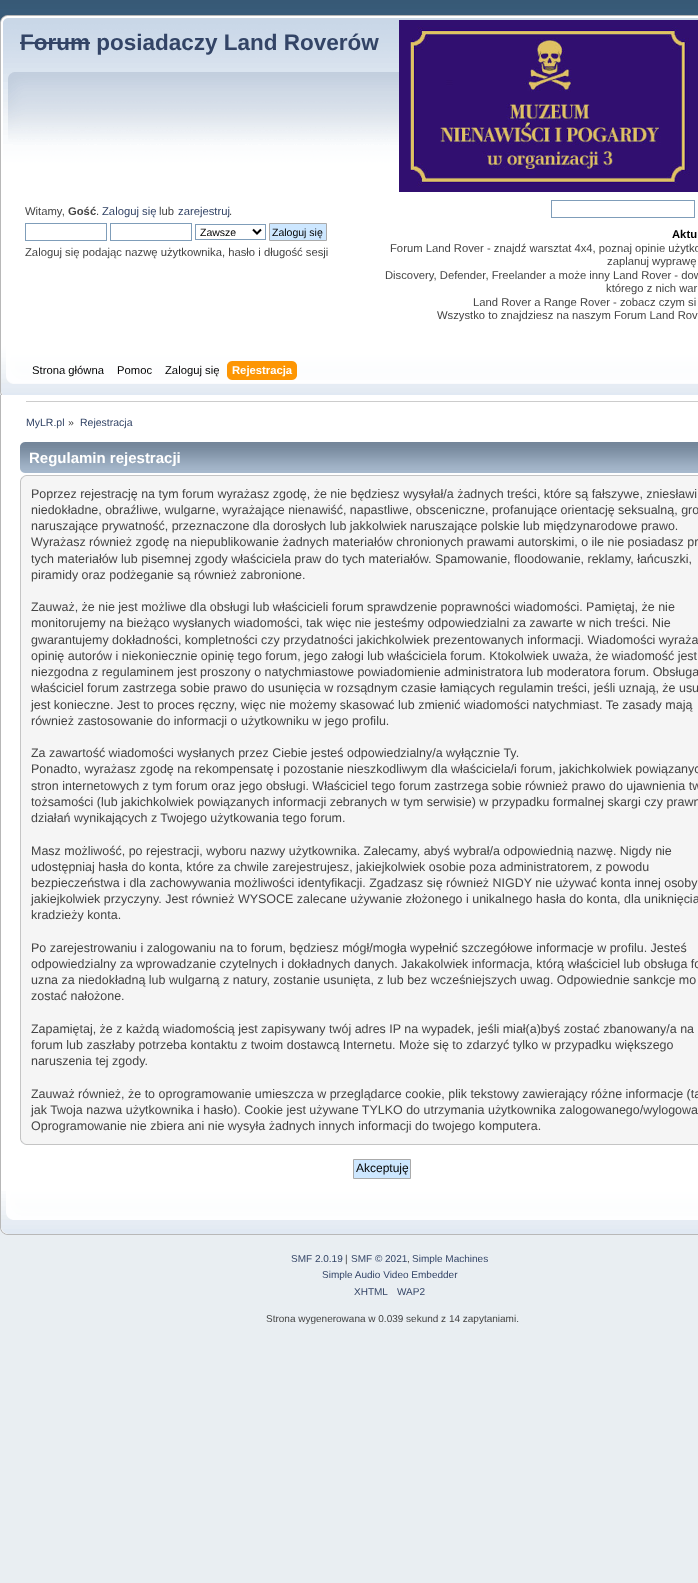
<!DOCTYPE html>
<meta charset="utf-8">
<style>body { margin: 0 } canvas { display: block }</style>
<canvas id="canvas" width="698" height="1583"></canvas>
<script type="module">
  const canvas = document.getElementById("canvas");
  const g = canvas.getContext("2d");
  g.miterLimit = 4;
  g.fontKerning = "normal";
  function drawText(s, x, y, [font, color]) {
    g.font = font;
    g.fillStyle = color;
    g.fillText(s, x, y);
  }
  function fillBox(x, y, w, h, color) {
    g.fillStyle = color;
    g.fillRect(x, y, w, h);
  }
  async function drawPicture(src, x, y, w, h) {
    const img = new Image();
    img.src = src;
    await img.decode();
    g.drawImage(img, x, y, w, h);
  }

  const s1 = ["bold 22.5px Liberation Sans", "#334466"];
  const s2 = ["11.25px Liberation Sans", "#444444"];
  const s3 = ["bold 11.25px Liberation Sans", "#444444"];
  const s4 = ["11.25px Liberation Sans", "#334466"];
  const s5 = ["10.5px Liberation Sans", "#000000"];
  const s6 = ["bold 11.25px Liberation Sans", "#000000"];
  const s7 = ["11.25px Liberation Sans", "#000000"];
  const s8 = ["bold 11.25px Liberation Sans", "#FFFFFF"];
  const s9 = ["10.5px Liberation Sans", "#334466"];
  const s10 = ["10.5px Liberation Sans", "#444444"];
  const s11 = ["bold 15px Liberation Sans", "#FFFFFF"];
  const s12 = ["12.48px Liberation Sans", "#444444"];
  const s13 = ["12px Liberation Sans", "#000000"];
  const s14 = ["10px Liberation Sans", "#334466"];
  const s15 = ["10px Liberation Sans", "#444444"];

  fillBox(0, 0, 698, 1583, "#E9EEF2");
  await drawPicture("pic1.png", 0, 0, 698, 15);
  await drawPicture("pic2.png", 0, 15, 698, 380);
  drawText("Forum posiadaczy Land Roverów", 20, 50, s1);
  fillBox(20, 42, 70, 2, "#334466");
  await drawPicture("pic3.png", 399, 20, 299, 172);
  drawText("Witamy,", 25, 215, s2);
  drawText("Gość", 68, 215, s3);
  drawText(".", 96, 215, s2);
  drawText("Zaloguj się", 102, 215, s4);
  drawText("lub", 159, 215, s2);
  drawText("zarejestruj", 178, 215, s4);
  drawText(".", 229, 215, s2);
  g.strokeStyle = "#7F9DB9";
  g.strokeRect(25.5, 223.5, 81, 17);
  g.strokeRect(110.5, 223.5, 81, 17);
  g.strokeRect(195.5, 224.5, 70, 15);
  g.beginPath();
  g.moveTo(253, 229.5);
  g.lineTo(257, 233.5);
  g.lineTo(261, 229.5);
  g.strokeStyle = "#000000";
  g.lineWidth = 2;
  g.stroke();
  drawText("Zawsze", 200, 236, s5);
  g.fillStyle = "#CDE7FF";
  g.beginPath();
  g.rect(269.5, 223.5, 57, 17);
  g.fill();
  g.strokeStyle = "#AAAAAA";
  g.lineWidth = 1;
  g.stroke();
  drawText("Zaloguj się", 272, 236, s5);
  drawText("Zaloguj się podając nazwę użytkownika, hasło i długość sesji", 25, 256, s2);
  g.strokeStyle = "#7F9DB9";
  g.strokeRect(551.5, 200.5, 143, 17);
  drawText("Aktu", 672, 238, s6);
  drawText("Forum Land Rover - znajdź warsztat 4x4, poznaj opinie użytko", 390, 252, s2);
  drawText("zaplanuj wyprawę", 607, 265, s2);
  drawText("Discovery, Defender, Freelander a może inny Land Rover - dow", 385, 279, s2);
  drawText("którego z nich war", 606, 292, s2);
  drawText("Land Rover a Range Rover - zobacz czym si", 473, 306, s2);
  drawText("Wszystko to znajdziesz na naszym Forum Land Rov", 437, 319, s2);
  drawText("Strona główna", 32, 374, s7);
  drawText("Pomoc", 117, 374, s7);
  drawText("Zaloguj się", 165, 374, s7);
  await drawPicture("pic4.png", 232, 361, 65, 19);
  await drawPicture("pic5.png", 227, 361, 5, 19);
  drawText("Rejestracja", 232, 374, s8);
  fillBox(1, 395, 697, 796, "#FFFFFF");
  fillBox(0, 395, 1, 796, "#B7B7B7");
  fillBox(26, 401, 672, 1, "#CCCCCC");
  drawText("MyLR.pl", 26, 426, s9);
  drawText("»", 68, 426, s10);
  drawText("Rejestracja", 80, 426, s9);
  await drawPicture("pic6.png", 20, 442, 678, 31);
  drawText("Regulamin rejestracji", 29, 463, s11);
  await drawPicture("pic7.png", 20, 475, 678, 11);
  fillBox(21, 486, 677, 648, "#F5F5F5");
  fillBox(20, 486, 1, 648, "#C5C5C5");
  drawText("Poprzez rejestrację na tym forum wyrażasz zgodę, że nie będziesz wysyłał/a żadnych treści, które są fałszywe, zniesławi", 31, 498, s12);
  drawText("niedokładne, obraźliwe, wulgarne, wyrażające nienawiść, napastliwe, obsceniczne, profanujące orientację seksualną, gro", 31, 514, s12);
  drawText("naruszające prywatność, przeznaczone dla dorosłych lub jakkolwiek naruszające polskie lub międzynarodowe prawo.", 31, 530, s12);
  drawText("Wyrażasz również zgodę na niepublikowanie żadnych materiałów chronionych prawami autorskimi, o ile nie posiadasz pr", 31, 546, s12);
  drawText("tych materiałów lub pisemnej zgody właściciela praw do tych materiałów. Spamowanie, floodowanie, reklamy, łańcuszki,", 31, 563, s12);
  drawText("piramidy oraz podżeganie są również zabronione.", 31, 579, s12);
  drawText("Zauważ, że nie jest możliwe dla obsługi lub właścicieli forum sprawdzenie poprawności wiadomości. Pamiętaj, że nie", 31, 611, s12);
  drawText("monitorujemy na bieżąco wysłanych wiadomości, tak więc nie jesteśmy odpowiedzialni za zawarte w nich treści. Nie", 31, 627, s12);
  drawText("gwarantujemy dokładności, kompletności czy przydatności jakichkolwiek prezentowanych informacji. Wiadomości wyraża", 31, 644, s12);
  drawText("opinię autorów i niekoniecznie opinię tego forum, jego załogi lub właściciela forum. Ktokolwiek uważa, że wiadomość jest", 31, 660, s12);
  drawText("niezgodna z regulaminem jest proszony o natychmiastowe powiadomienie administratora lub moderatora forum. Obsługa", 31, 676, s12);
  drawText("właściciel forum zastrzega sobie prawo do usunięcia w rozsądnym czasie łamiących regulamin treści, jeśli uznają, że usu", 31, 692, s12);
  drawText("jest konieczne. Jest to proces ręczny, więc nie możemy skasować lub zmienić wiadomości natychmiast. Te zasady mają", 31, 709, s12);
  drawText("również zastosowanie do informacji o użytkowniku w jego profilu.", 31, 725, s12);
  drawText("Za zawartość wiadomości wysłanych przez Ciebie jesteś odpowiedzialny/a wyłącznie Ty.", 31, 757, s12);
  drawText("Ponadto, wyrażasz zgodę na rekompensatę i pozostanie nieszkodliwym dla właściciela/i forum, jakichkolwiek powiązanyc", 31, 773, s12);
  drawText("stron internetowych z tym forum oraz jego obsługi. Właściciel tego forum zastrzega sobie również prawo do ujawnienia tw", 31, 790, s12);
  drawText("tożsamości (lub jakichkolwiek powiązanych informacji zebranych w tym serwisie) w przypadku formalnej skargi czy prawn", 31, 806, s12);
  drawText("działań wynikających z Twojego użytkowania tego forum.", 31, 822, s12);
  drawText("Masz możliwość, po rejestracji, wyboru nazwy użytkownika. Zalecamy, abyś wybrał/a odpowiednią nazwę. Nigdy nie", 31, 855, s12);
  drawText("udostępniaj hasła do konta, które za chwile zarejestrujesz, jakiejkolwiek osobie poza administratorem, z powodu", 31, 871, s12);
  drawText("bezpieczeństwa i dla zachowywania możliwości identyfikacji. Zgadzasz się również NIGDY nie używać konta innej osoby", 31, 887, s12);
  drawText("jakiejkolwiek przyczyny. Jest również WYSOCE zalecane używanie złożonego i unikalnego hasła do konta, dla uniknięcia", 31, 903, s12);
  drawText("kradzieży konta.", 31, 919, s12);
  drawText("Po zarejestrowaniu i zalogowaniu na to forum, będziesz mógł/mogła wypełnić szczegółowe informacje w profilu. Jesteś", 31, 952, s12);
  drawText("odpowiedzialny za wprowadzanie czytelnych i dokładnych danych. Jakakolwiek informacja, którą właściciel lub obsługa fo", 31, 968, s12);
  drawText("uzna za niedokładną lub wulgarną z natury, zostanie usunięta, z lub bez wcześniejszych uwag. Odpowiednie sankcje mo", 31, 984, s12);
  drawText("zostać nałożone.", 31, 1000, s12);
  drawText("Zapamiętaj, że z każdą wiadomością jest zapisywany twój adres IP na wypadek, jeśli miał(a)byś zostać zbanowany/a na", 31, 1033, s12);
  drawText("forum lub zaszłaby potrzeba kontaktu z twoim dostawcą Internetu. Może się to zdarzyć tylko w przypadku większego", 31, 1049, s12);
  drawText("naruszenia tej zgody.", 31, 1065, s12);
  drawText("Zauważ również, że to oprogramowanie umieszcza w przeglądarce cookie, plik tekstowy zawierający różne informacje (ta", 31, 1098, s12);
  drawText("jak Twoja nazwa użytkownika i hasło). Cookie jest używane TYLKO do utrzymania użytkownika zalogowanego/wylogowa", 31, 1114, s12);
  drawText("Oprogramowanie nie zbiera ani nie wysyła żadnych innych informacji do twojego komputera.", 31, 1130, s12);
  await drawPicture("pic8.png", 20, 1134, 678, 11);
  g.fillStyle = "#CDE7FF";
  g.beginPath();
  g.rect(353.5, 1159.5, 57, 19);
  g.fill();
  g.strokeStyle = "#AAAAAA";
  g.stroke();
  drawText("Akceptuję", 356, 1172, s13);
  await drawPicture("pic9.png", 0, 1191, 698, 44);
  drawText("SMF 2.0.19", 291, 1262, s14);
  drawText("|", 345, 1262, s15);
  drawText("SMF © 2021", 351, 1262, s14);
  drawText(",", 407, 1262, s15);
  drawText("Simple Machines", 412, 1262, s14);
  drawText("Simple Audio Video Embedder", 322, 1278, s14);
  drawText("XHTML", 354, 1295, s14);
  drawText("WAP2", 397, 1295, s14);
  drawText("Strona wygenerowana w 0.039 sekund z 14 zapytaniami.", 266, 1322, s15);
</script>
